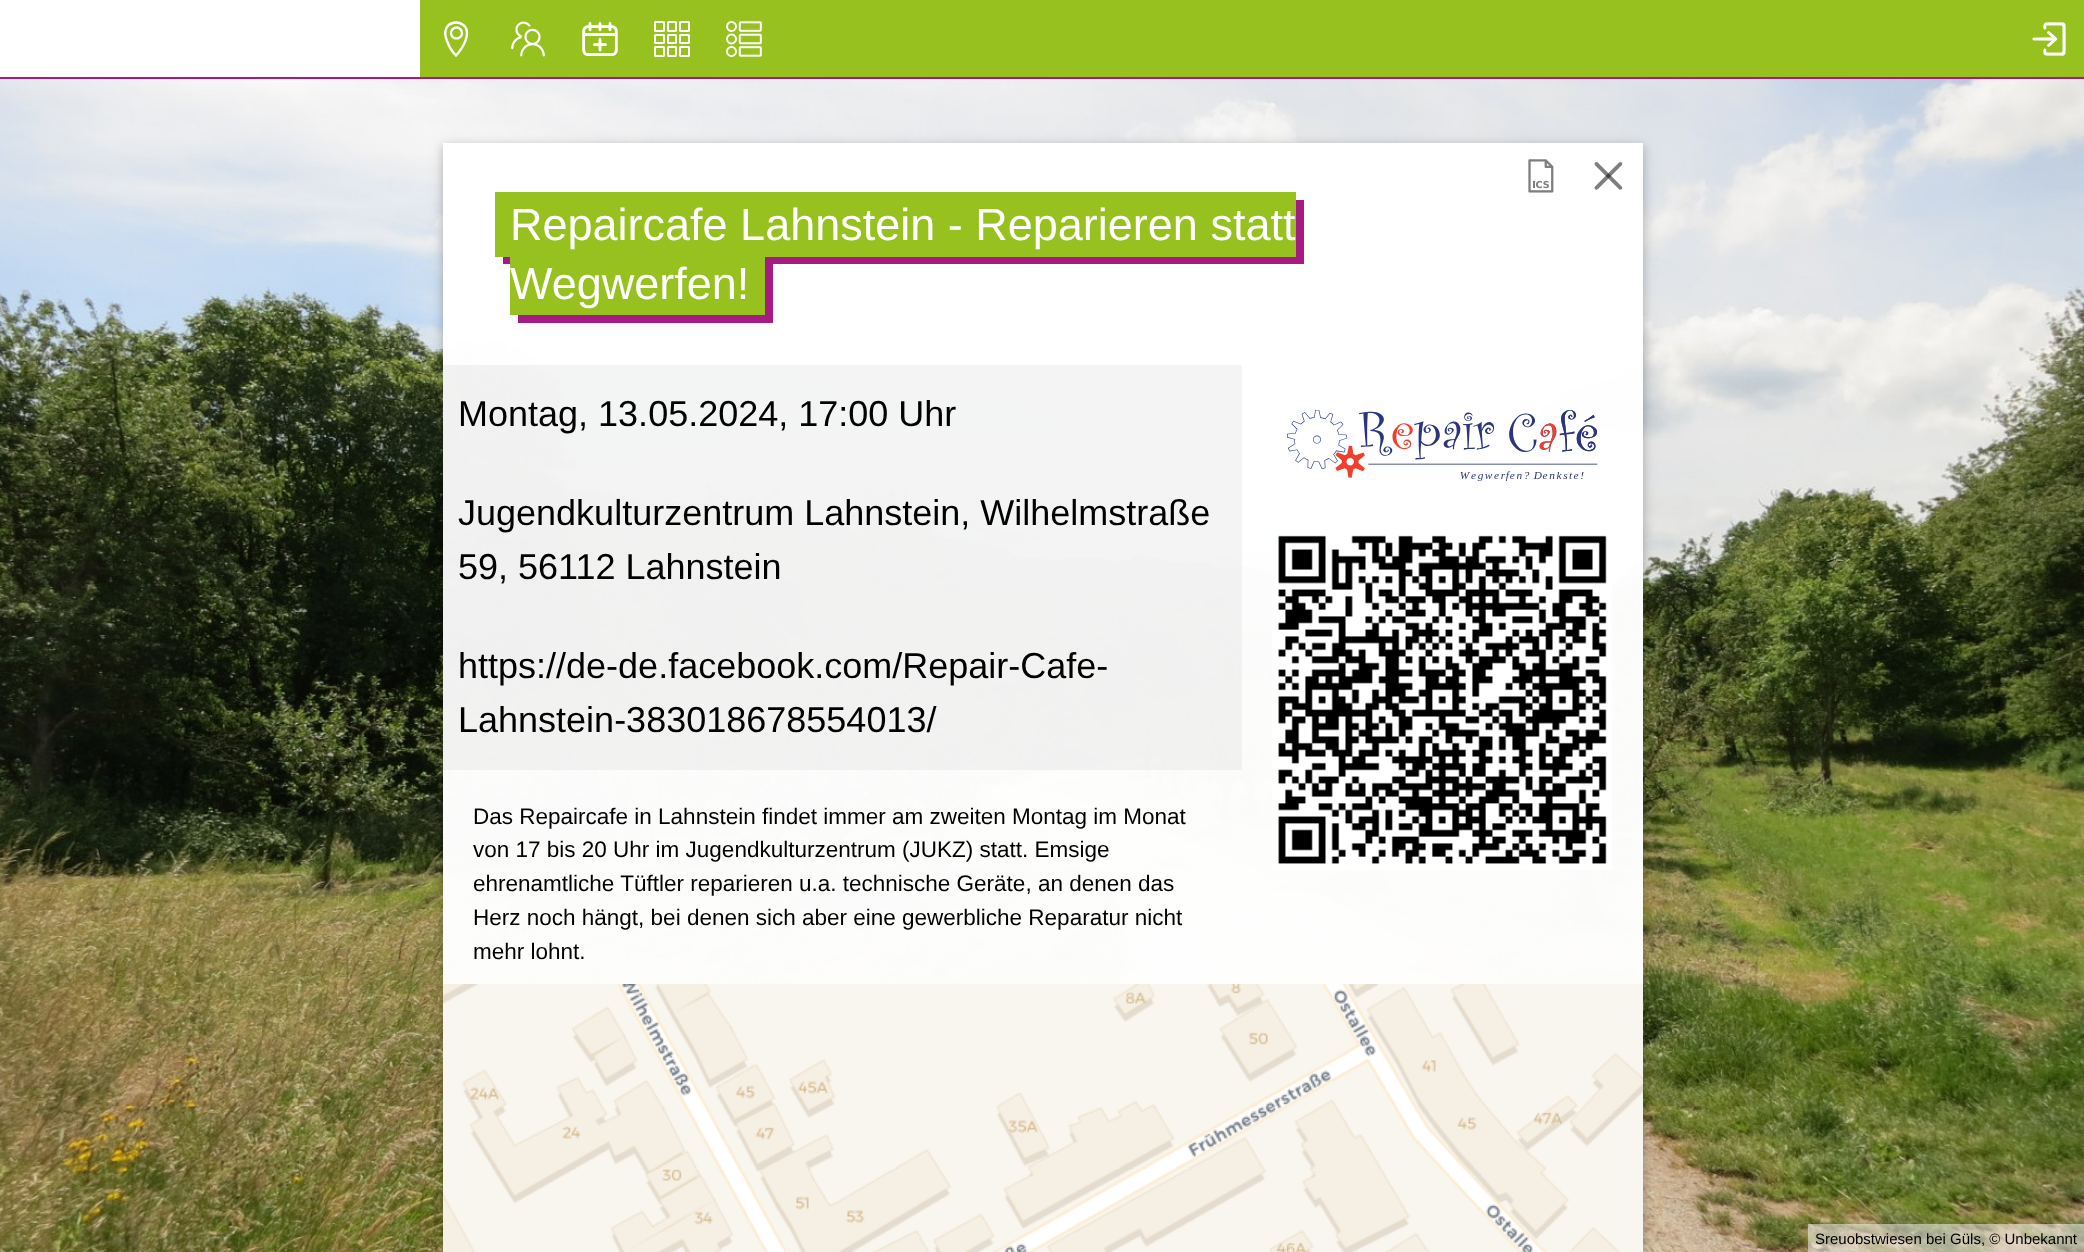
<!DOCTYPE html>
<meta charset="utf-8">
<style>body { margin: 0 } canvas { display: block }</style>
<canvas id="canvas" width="2084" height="1252"></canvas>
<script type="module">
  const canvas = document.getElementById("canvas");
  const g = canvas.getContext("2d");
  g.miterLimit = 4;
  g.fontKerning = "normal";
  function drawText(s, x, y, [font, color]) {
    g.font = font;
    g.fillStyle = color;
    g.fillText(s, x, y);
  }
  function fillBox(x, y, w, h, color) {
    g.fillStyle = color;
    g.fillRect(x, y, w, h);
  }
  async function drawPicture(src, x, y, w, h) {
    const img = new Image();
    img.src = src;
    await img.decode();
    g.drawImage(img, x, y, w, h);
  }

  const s1 = ["45px Liberation Sans", "#FFFFFF"];
  const s2 = ["36px Liberation Sans", "#000000"];
  const s3 = ["22.5px Liberation Sans", "#000000"];
  const s4 = ["15px Liberation Sans", "#000000"];

  fillBox(0, 0, 2084, 1252, "#FFFFFF");
  fillBox(420, 0, 1664, 77, "#96C11F");
  fillBox(0, 77, 2084, 2, "#A61B81");
  g.beginPath();
  g.moveTo(467, 33);
  g.bezierCurveTo(467, 44, 456, 55.5, 456, 55.5);
  g.bezierCurveTo(452, 51.5, 449, 46.5, 447, 41);
  g.bezierCurveTo(438, 19, 467, 17, 467, 33);
  g.closePath();
  g.strokeStyle = "#FFFFFF";
  g.lineWidth = 2.4;
  g.stroke();
  g.beginPath();
  g.arc(456.5, 33, 5.5, 0, Math.PI * 2);
  g.stroke();
  await drawPicture("pic1.png", 511, 21, 34, 36);
  await drawPicture("pic2.png", 582, 22, 36, 34);
  await drawPicture("pic3.png", 654, 21, 36, 36);
  await drawPicture("pic4.png", 726, 21, 36, 36);
  await drawPicture("pic5.png", 2032, 22, 34, 34);
  await drawPicture("pic18.png", 0, 79, 2084, 1173);
  g.save();
  g.beginPath();
  g.moveTo(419, 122);
  g.lineTo(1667, 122);
  g.lineTo(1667, 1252);
  g.lineTo(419, 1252);
  g.closePath();
  g.moveTo(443, 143);
  g.lineTo(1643, 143);
  g.lineTo(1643, 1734);
  g.lineTo(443, 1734);
  g.closePath();
  g.clip("evenodd");
  g.fillStyle = "rgba(0, 0, 0, 0.12)";
  g.filter = "blur(7.5px)";
  g.beginPath();
  g.rect(443, 146, 1200, 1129);
  g.fill();
  g.filter = "none";
  g.restore();
  g.save();
  g.beginPath();
  g.moveTo(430, 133);
  g.lineTo(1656, 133);
  g.lineTo(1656, 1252);
  g.lineTo(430, 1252);
  g.closePath();
  g.moveTo(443, 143);
  g.lineTo(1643, 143);
  g.lineTo(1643, 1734);
  g.lineTo(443, 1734);
  g.closePath();
  g.clip("evenodd");
  g.fillStyle = "rgba(0, 0, 0, 0.16)";
  g.filter = "blur(4px)";
  g.beginPath();
  g.rect(443, 146, 1200, 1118);
  g.fill();
  g.filter = "none";
  g.restore();
  fillBox(443, 143, 1200, 841, "rgba(255, 255, 255, 0.9)");
  fillBox(443, 143, 1200, 222, "rgba(255, 255, 255, 0.9)");
  await drawPicture("pic6.png", 1528, 159, 26, 34);
  await drawPicture("pic7.png", 1594, 162, 29, 28);
  g.fillStyle = "#A61B81";
  g.beginPath();
  g.moveTo(503, 256);
  g.lineTo(503, 264);
  g.lineTo(1304, 264);
  g.lineTo(1304, 200);
  g.lineTo(1296, 200);
  g.lineTo(1296, 256);
  g.closePath();
  g.fill();
  fillBox(495, 192, 801, 65, "#96C11F");
  drawText("Repaircafe Lahnstein - Reparieren statt", 510, 240, s1);
  g.fillStyle = "#A61B81";
  g.beginPath();
  g.moveTo(518, 315);
  g.lineTo(518, 323);
  g.lineTo(773, 323);
  g.lineTo(773, 258);
  g.lineTo(765, 258);
  g.lineTo(765, 315);
  g.closePath();
  g.fill();
  fillBox(510, 257, 255, 58, "#96C11F");
  drawText("Wegwerfen!", 510, 299, s1);
  fillBox(443, 365, 1200, 619, "rgba(255, 255, 255, 0.8)");
  fillBox(443, 365, 799, 99, "rgba(220, 220, 220, 0.3)");
  drawText("Montag, 13.05.2024, 17:00 Uhr", 458, 426, s2);
  fillBox(443, 464, 799, 153, "rgba(220, 220, 220, 0.3)");
  drawText("Jugendkulturzentrum Lahnstein, Wilhelmstraße", 458, 525, s2);
  drawText("59, 56112 Lahnstein", 458, 579, s2);
  fillBox(443, 617, 799, 153, "rgba(220, 220, 220, 0.3)");
  drawText("https://de-de.facebook.com/Repair-Cafe-", 458, 678, s2);
  drawText("Lahnstein-383018678554013/", 458, 732, s2);
  drawText("Das Repaircafe in Lahnstein findet immer am zweiten Montag im Monat", 473, 824, s3);
  drawText("von 17 bis 20 Uhr im Jugendkulturzentrum (JUKZ) statt. Emsige", 473, 857, s3);
  drawText("ehrenamtliche Tüftler reparieren u.a. technische Geräte, an denen das", 473, 891, s3);
  drawText("Herz noch hängt, bei denen sich aber eine gewerbliche Reparatur nicht", 473, 925, s3);
  drawText("mehr lohnt.", 473, 959, s3);
  await drawPicture("pic8.png", 1287, 410, 311, 71);
  await drawPicture("pic9.png", 1272, 535, 340, 335);
  await drawPicture("pic10.png", 443, 984, 271, 185);
  await drawPicture("pic11.png", 714, 984, 384, 185);
  await drawPicture("pic12.png", 1098, 984, 384, 185);
  await drawPicture("pic13.png", 1482, 984, 161, 185);
  await drawPicture("pic14.png", 443, 1169, 271, 83);
  await drawPicture("pic15.png", 714, 1169, 384, 83);
  await drawPicture("pic16.png", 1098, 1169, 384, 83);
  await drawPicture("pic17.png", 1482, 1169, 161, 83);
  fillBox(1808, 1224, 276, 28, "rgba(255, 255, 255, 0.5)");
  drawText("Sreuobstwiesen bei Güls, © Unbekannt", 1815, 1244, s4);
</script>
